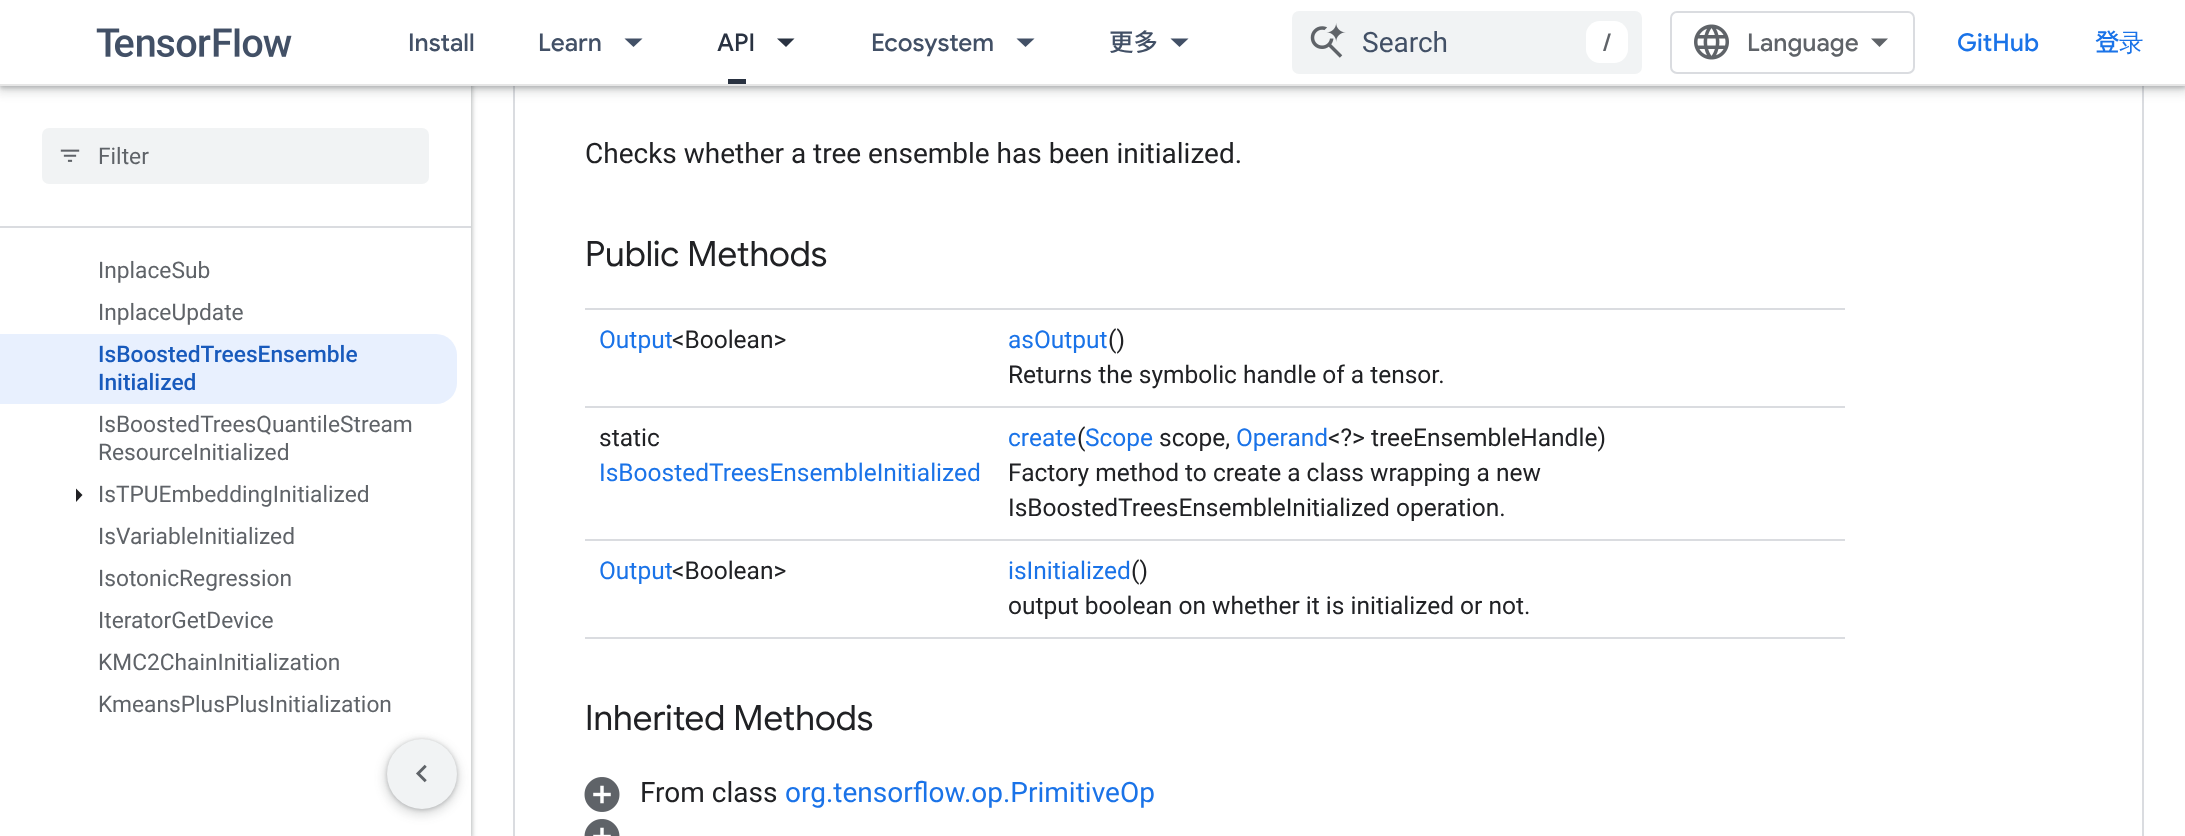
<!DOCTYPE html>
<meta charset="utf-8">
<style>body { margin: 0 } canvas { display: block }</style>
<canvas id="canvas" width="2185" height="836"></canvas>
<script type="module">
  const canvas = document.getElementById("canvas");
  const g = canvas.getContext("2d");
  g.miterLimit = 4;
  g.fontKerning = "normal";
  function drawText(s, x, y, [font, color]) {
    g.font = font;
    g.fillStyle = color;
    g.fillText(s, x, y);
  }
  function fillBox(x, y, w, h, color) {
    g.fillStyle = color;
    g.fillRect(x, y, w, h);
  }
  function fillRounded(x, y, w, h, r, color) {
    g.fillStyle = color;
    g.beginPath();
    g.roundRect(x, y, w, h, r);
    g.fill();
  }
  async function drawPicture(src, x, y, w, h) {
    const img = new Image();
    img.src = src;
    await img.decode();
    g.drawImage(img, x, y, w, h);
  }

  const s1 = ["500 24.5px Google Sans", "#425066"];
  const s2 = ["500 24.5px Google Sans", "#293241"];
  const s3 = ["500 24.5px Noto Sans JP", "#425066"];
  const s4 = ["28px Roboto", "#425066"];
  const s5 = ["500 24.5px Google Sans", "#5F6368"];
  const s6 = ["500 24.5px Google Sans", "#1A73E8"];
  const s7 = ["500 24.5px Noto Sans JP", "#1A73E8"];
  const s8 = ["500 24.5px WenQuanYi Zen Hei", "#1A73E8"];
  const s9 = ["22.75px Roboto", "#5F6368"];
  const s10 = ["500 22.75px Roboto", "#185ABC"];
  const s11 = ["28px Roboto", "#202124"];
  const s12 = ["35px Google Sans", "#202124"];
  const s13 = ["24.5px Roboto", "#1A73E8"];
  const s14 = ["24.5px Roboto", "#202124"];
  const s15 = ["28px Roboto", "#1A73E8"];

  fillBox(0, 0, 2185, 836, "#FFFFFF");
  g.fillStyle = "rgba(60, 64, 67, 0.15)";
  g.filter = "blur(2.5px)";
  g.beginPath();
  g.rect(-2, 0, 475, 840);
  g.fill();
  g.filter = "none";
  g.fillStyle = "rgba(60, 64, 67, 0.3)";
  g.filter = "blur(2px)";
  g.beginPath();
  g.rect(0, 2, 471, 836);
  g.fill();
  g.filter = "none";
  fillBox(0, 228, 471, 608, "#FFFFFF");
  fillBox(0, 86, 471, 140, "#FFFFFF");
  g.strokeStyle = "#DADCE0";
  g.lineWidth = 2;
  g.strokeRect(514, -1, 1629, 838);
  g.fillStyle = "rgba(60, 64, 67, 0.15)";
  g.filter = "blur(5px)";
  g.beginPath();
  g.rect(-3, -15, 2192, 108);
  g.fill();
  g.filter = "none";
  g.fillStyle = "rgba(60, 64, 67, 0.3)";
  g.filter = "blur(2px)";
  g.beginPath();
  g.rect(0, -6, 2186, 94);
  g.fill();
  g.filter = "none";
  fillBox(0, 0, 2185, 84, "#FFFFFF");
  fillBox(0, 84, 2185, 2, "#E6E6E6");
  await drawPicture("pic1.png", 96, 28, 196, 30);
  drawText("Install", 408, 51, s1);
  drawText("Learn", 538, 51, s1);
  g.beginPath();
  g.moveTo(624.5, 38.5);
  g.lineTo(642.5, 38.5);
  g.lineTo(633.5, 47);
  g.closePath();
  g.fill();
  drawText("API", 717, 51, s2);
  fillBox(728, 79, 18, 5, "#293241");
  g.beginPath();
  g.moveTo(777, 38.5);
  g.lineTo(794.5, 38.5);
  g.lineTo(786, 47);
  g.closePath();
  g.fill();
  drawText("Ecosystem", 871, 51, s1);
  g.beginPath();
  g.moveTo(1016.5, 38.5);
  g.lineTo(1034.5, 38.5);
  g.lineTo(1025.5, 47);
  g.closePath();
  g.fill();
  drawText("更多", 1109, 51, s3);
  g.beginPath();
  g.moveTo(1170.5, 38.5);
  g.lineTo(1188.5, 38.5);
  g.lineTo(1179.5, 47);
  g.closePath();
  g.fill();
  fillRounded(1292, 11, 350, 63, 7, "#F1F3F4");
  await drawPicture("pic2.png", 1310, 23, 36, 35);
  drawText("Search", 1362, 52, s4);
  fillRounded(1586, 21, 42, 42, 14, "#FFFFFF");
  drawText("/", 1603, 51, s5);
  g.beginPath();
  g.roundRect(1671, 12, 243, 61, 6);
  g.stroke();
  await drawPicture("pic3.png", 1694, 24, 35, 36);
  drawText("Language", 1747, 51, s5);
  g.beginPath();
  g.moveTo(1879.5, 47);
  g.lineTo(1871, 38.5);
  g.lineTo(1888, 38.5);
  g.closePath();
  g.fill();
  drawText("GitHub", 1957, 51, s6);
  drawText("登", 2095, 51, s7);
  drawText("录", 2119, 51, s8);
  fillBox(0, 226, 471, 2, "#DADCE0");
  fillRounded(42, 128, 387, 56, 7, "#F1F3F4");
  await drawPicture("pic4.png", 60, 149, 20, 13);
  drawText("Filter", 98, 164, s9);
  drawText("InplaceSub", 98, 278, s9);
  drawText("InplaceUpdate", 98, 320, s9);
  g.fillStyle = "#E8F0FE";
  g.beginPath();
  g.roundRect(0, 334, 457, 70, [0, 21, 21, 0]);
  g.fill();
  drawText("IsBoostedTreesEnsemble", 98, 362, s10);
  drawText("Initialized", 98, 390, s10);
  drawText("IsBoostedTreesQuantileStream", 98, 432, s9);
  drawText("ResourceInitialized", 98, 460, s9);
  g.fillStyle = "#202124";
  g.beginPath();
  g.moveTo(76, 502);
  g.lineTo(76, 488.5);
  g.lineTo(82.5, 495);
  g.closePath();
  g.fill();
  drawText("IsTPUEmbeddingInitialized", 98, 502, s9);
  drawText("IsVariableInitialized", 98, 544, s9);
  drawText("IsotonicRegression", 98, 586, s9);
  drawText("IteratorGetDevice", 98, 628, s9);
  drawText("KMC2ChainInitialization", 98, 670, s9);
  drawText("KmeansPlusPlusInitialization", 98, 712, s9);
  drawText("Checks whether a tree ensemble has been initialized.", 585, 163, s11);
  drawText("Public Methods", 585, 266, s12);
  fillBox(585, 308, 1260, 2, "#DADCE0");
  fillBox(585, 406, 1260, 2, "#DADCE0");
  drawText("Output", 599, 348, s13);
  drawText("<Boolean>", 672, 348, s14);
  drawText("asOutput", 1008, 348, s13);
  drawText("()", 1108, 348, s14);
  drawText("Returns the symbolic handle of a tensor.", 1008, 383, s14);
  fillBox(585, 539, 1260, 2, "#DADCE0");
  drawText("static", 599, 446, s14);
  drawText("IsBoostedTreesEnsembleInitialized", 599, 481, s13);
  drawText("create", 1008, 446, s13);
  drawText("(", 1077, 446, s14);
  drawText("Scope", 1085, 446, s13);
  drawText("scope,", 1159, 446, s14);
  drawText("Operand", 1236, 446, s13);
  drawText("<?> treeEnsembleHandle)", 1328, 446, s14);
  drawText("Factory method to create a class wrapping a new", 1008, 481, s14);
  drawText("IsBoostedTreesEnsembleInitialized operation.", 1008, 516, s14);
  fillBox(585, 637, 1260, 2, "#DADCE0");
  drawText("Output", 599, 579, s13);
  drawText("<Boolean>", 672, 579, s14);
  drawText("isInitialized", 1008, 579, s13);
  drawText("()", 1131, 579, s14);
  drawText("output boolean on whether it is initialized or not.", 1008, 614, s14);
  drawText("Inherited Methods", 585, 730, s12);
  await drawPicture("pic5.png", 584, 777, 36, 35);
  drawText("From class", 640, 802, s11);
  drawText("org.tensorflow.op.PrimitiveOp", 785, 802, s15);
  await drawPicture("pic6.png", 584, 819, 36, 17);
  g.fillStyle = "rgba(60, 64, 67, 0.15)";
  g.filter = "blur(5px)";
  g.beginPath();
  g.roundRect(383, 739, 77, 77, 38.5);
  g.fill();
  g.filter = "none";
  g.fillStyle = "rgba(60, 64, 67, 0.3)";
  g.filter = "blur(2px)";
  g.beginPath();
  g.roundRect(387, 740, 70, 70, 35);
  g.fill();
  g.filter = "none";
  g.fillStyle = "#F1F3F4";
  g.beginPath();
  g.arc(422, 774, 35, 0, Math.PI * 2);
  g.fill();
  await drawPicture("pic7.png", 416, 764, 11, 19);
</script>
